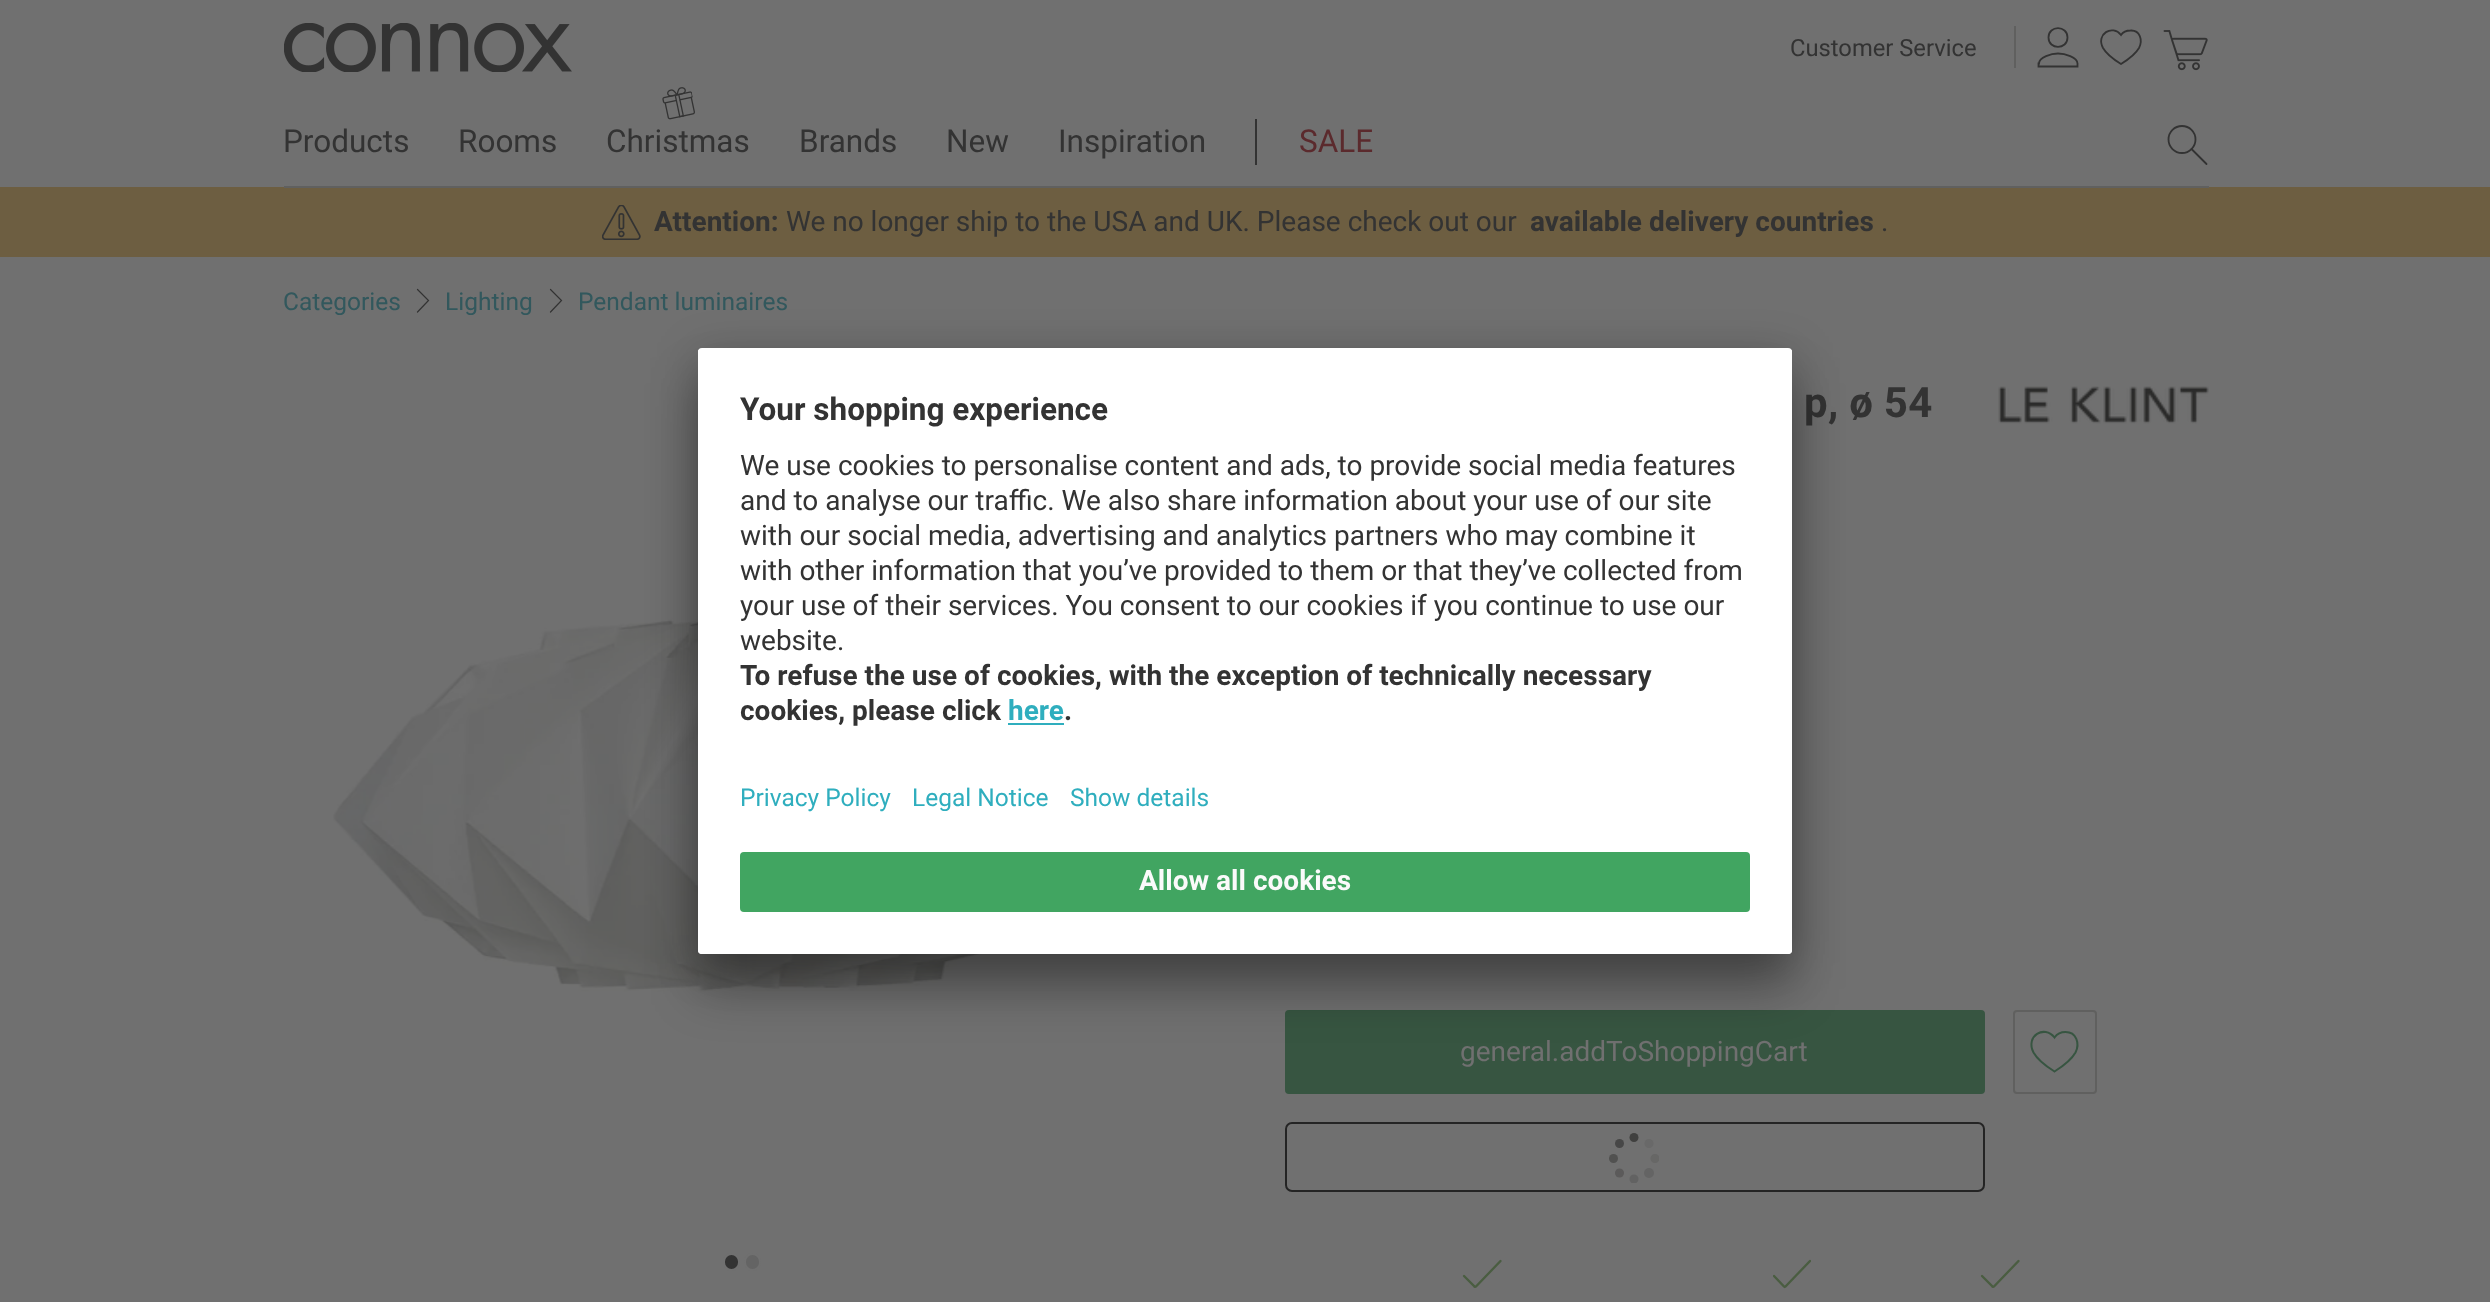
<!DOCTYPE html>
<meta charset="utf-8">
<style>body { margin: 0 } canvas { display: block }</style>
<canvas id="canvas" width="2490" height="1302"></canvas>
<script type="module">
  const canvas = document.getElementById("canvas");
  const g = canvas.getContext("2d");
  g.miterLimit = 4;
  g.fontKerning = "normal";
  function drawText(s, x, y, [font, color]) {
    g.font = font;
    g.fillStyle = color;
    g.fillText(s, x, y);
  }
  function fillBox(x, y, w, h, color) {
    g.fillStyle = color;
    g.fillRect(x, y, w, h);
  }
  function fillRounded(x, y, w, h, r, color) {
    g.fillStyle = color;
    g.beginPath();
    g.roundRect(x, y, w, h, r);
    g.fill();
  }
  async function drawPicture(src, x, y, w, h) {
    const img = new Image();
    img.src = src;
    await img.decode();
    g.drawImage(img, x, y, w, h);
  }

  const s1 = ["23.75px Roboto", "#333333"];
  const s2 = ["31.5px Roboto", "#333333"];
  const s3 = ["31.5px Roboto", "#5B2A2D"];
  const s4 = ["bold 28px Roboto", "#333333"];
  const s5 = ["28px Roboto", "#333333"];
  const s6 = ["24.5px Roboto", "#32585D"];
  const s7 = ["bold 42px Roboto", "#333333"];
  const s8 = ["28px Roboto", "#707070"];
  const s9 = ["bold 31.5px Roboto", "#333333"];
  const s10 = ["bold 28px Roboto", "#2FAEBE"];
  const s11 = ["24.5px Roboto", "#2FAEBE"];
  const s12 = ["bold 28px Roboto", "#FAFAFA"];

  fillBox(0, 0, 2490, 1302, "#707070");
  await drawPicture("pic1.png", 284, 23, 288, 49);
  fillBox(2014, 26, 2, 42, "#60605F");
  drawText("Customer Service", 1790, 56, s1);
  g.beginPath();
  g.moveTo(2067.5, 37.5);
  g.bezierCurveTo(2067.5, 50, 2048.5, 50, 2048.5, 37.5);
  g.bezierCurveTo(2048.5, 25, 2067.5, 25, 2067.5, 37.5);
  g.closePath();
  g.moveTo(2039, 63.5);
  g.bezierCurveTo(2039, 57, 2051.5, 53.5, 2058, 53.5);
  g.bezierCurveTo(2064.5, 53.5, 2077.5, 57, 2077.5, 63.5);
  g.lineTo(2077.5, 66.5);
  g.lineTo(2038.5, 66.5);
  g.lineTo(2038.5, 63.5);
  g.closePath();
  g.strokeStyle = "#333333";
  g.lineWidth = 1.8;
  g.stroke();
  g.beginPath();
  g.moveTo(2130.5, 30.5);
  g.bezierCurveTo(2126.5, 30.5, 2123, 32, 2121, 35);
  g.bezierCurveTo(2112.5, 24, 2095.5, 34, 2103, 48);
  g.bezierCurveTo(2107, 55, 2114.5, 60, 2121, 64);
  g.bezierCurveTo(2127.5, 60, 2135, 55, 2139, 48);
  g.bezierCurveTo(2143, 40, 2140, 30, 2130.5, 30.5);
  g.closePath();
  g.stroke();
  await drawPicture("pic2.png", 2163, 30, 45, 41);
  fillBox(0, 187, 2490, 70, "#6D5E41");
  fillBox(284, 186, 1925, 2, "#60605F");
  drawText("Products", 283, 152, s2);
  drawText("Rooms", 458, 152, s2);
  await drawPicture("pic3.png", 662, 87, 33, 33);
  drawText("Christmas", 606, 152, s2);
  drawText("Brands", 799, 152, s2);
  drawText("New", 946, 152, s2);
  drawText("Inspiration", 1058, 152, s2);
  fillBox(1255, 119, 2, 46, "#333333");
  drawText("SALE", 1299, 152, s3);
  g.beginPath();
  g.arc(2182, 139.5, 13.5, 0, Math.PI * 2);
  g.stroke();
  g.beginPath();
  g.moveTo(2206.5, 164);
  g.lineTo(2191.5, 149);
  g.lineCap = "round";
  g.stroke();
  await drawPicture("pic4.png", 602, 205, 39, 35);
  drawText("Attention:", 654, 231, s4);
  drawText("We no longer ship to the USA and UK. Please check out our", 786, 231, s5);
  drawText("available delivery countries", 1530, 231, s4);
  drawText(".", 1881, 231, s5);
  drawText("Categories", 283, 310, s6);
  g.beginPath();
  g.moveTo(417.5, 312);
  g.lineTo(428.5, 300.5);
  g.lineTo(417.5, 289.5);
  g.lineWidth = 1.2;
  g.stroke();
  drawText("Lighting", 445, 310, s6);
  g.beginPath();
  g.moveTo(550.5, 312);
  g.lineTo(561.5, 300.5);
  g.lineTo(550.5, 289.5);
  g.stroke();
  drawText("Pendant luminaires", 578, 310, s6);
  await drawPicture("pic5.png", 333, 389, 826, 603);
  g.fillStyle = "#333333";
  g.beginPath();
  g.roundRect(724, 1254, 15, 16, 7.5);
  g.fill();
  g.strokeStyle = "#707070";
  g.lineWidth = 2;
  g.stroke();
  g.fillStyle = "#646464";
  g.beginPath();
  g.roundRect(745, 1254, 15, 16, 7.5);
  g.fill();
  g.stroke();
  g.letterSpacing = "0.25px";
  drawText("p, ø 54", 1804, 417, s7);
  await drawPicture("pic6.png", 1998, 386, 211, 38);
  g.fillStyle = "#375541";
  g.beginPath();
  g.roundRect(1286, 1011, 698, 82, 3);
  g.fill();
  g.strokeStyle = "#375541";
  g.stroke();
  g.letterSpacing = "0px";
  drawText("general.addToShoppingCart", 1460, 1061, s8);
  g.beginPath();
  g.roundRect(1286, 1123, 698, 68, 6);
  g.strokeStyle = "#242424";
  g.stroke();
  g.save();
  g.beginPath();
  g.rect(1608, 1132, 51, 51);
  g.clip();
  g.fillStyle = "#676766";
  g.beginPath();
  g.arc(1655, 1158.5, 4.5, 0, Math.PI * 2);
  g.fill();
  g.restore();
  g.fillStyle = "#515150";
  g.beginPath();
  g.arc(1613.5, 1158.5, 4.5, 0, Math.PI * 2);
  g.fill();
  g.save();
  g.beginPath();
  g.rect(1608, 1132, 51, 51);
  g.clip();
  g.fillStyle = "#626262";
  g.beginPath();
  g.arc(1634, 1179, 4.5, 0, Math.PI * 2);
  g.fill();
  g.restore();
  g.fillStyle = "#40403F";
  g.beginPath();
  g.arc(1634, 1137.5, 4.5, 0, Math.PI * 2);
  g.fill();
  g.fillStyle = "#646464";
  g.beginPath();
  g.arc(1649, 1173, 5, 0, Math.PI * 2);
  g.fill();
  g.fillStyle = "#474747";
  g.beginPath();
  g.arc(1619.5, 1143.5, 4.5, 0, Math.PI * 2);
  g.fill();
  g.fillStyle = "#5B5A5A";
  g.beginPath();
  g.arc(1619.5, 1173, 4.5, 0, Math.PI * 2);
  g.fill();
  g.fillStyle = "#696969";
  g.beginPath();
  g.arc(1649, 1143.5, 4.5, 0, Math.PI * 2);
  g.fill();
  g.beginPath();
  g.roundRect(2014, 1011, 82, 82, 3);
  g.strokeStyle = "#60605F";
  g.stroke();
  g.beginPath();
  g.moveTo(2065.5, 1032);
  g.bezierCurveTo(2061, 1032, 2057, 1034, 2054.5, 1037.5);
  g.bezierCurveTo(2044.5, 1024.5, 2025, 1036, 2033.5, 1052.5);
  g.bezierCurveTo(2038, 1060.5, 2046.5, 1066.5, 2054.5, 1071.5);
  g.bezierCurveTo(2062.5, 1066.5, 2071, 1060.5, 2075.5, 1052.5);
  g.bezierCurveTo(2080, 1043.5, 2076.5, 1032, 2065.5, 1032);
  g.closePath();
  g.strokeStyle = "#375541";
  g.lineCap = "butt";
  g.stroke();
  g.beginPath();
  g.moveTo(1464, 1276);
  g.lineTo(1474.5, 1286.5);
  g.bezierCurveTo(1474.5, 1287, 1475.5, 1287, 1476, 1286.5);
  g.lineTo(1500.5, 1261);
  g.strokeStyle = "#4A5D41";
  g.lineWidth = 2.4;
  g.lineCap = "round";
  g.stroke();
  g.save();
  g.beginPath();
  g.rect(1773, 1255, 38, 38);
  g.clip();
  g.beginPath();
  g.moveTo(1774, 1276);
  g.lineTo(1784, 1286.5);
  g.bezierCurveTo(1784.5, 1287, 1785, 1287, 1785.5, 1286.5);
  g.lineTo(1810, 1261);
  g.stroke();
  g.restore();
  g.beginPath();
  g.moveTo(1982, 1276);
  g.lineTo(1992.5, 1286.5);
  g.bezierCurveTo(1992.5, 1287, 1993.5, 1287, 1994, 1286.5);
  g.lineTo(2018.5, 1261);
  g.stroke();
  g.fillStyle = "rgba(0, 0, 0, 0.3)";
  g.filter = "blur(24.5px)";
  g.beginPath();
  g.roundRect(698, 383, 1094, 606, 4);
  g.fill();
  g.filter = "none";
  g.fillStyle = "rgba(0, 0, 0, 0.22)";
  g.filter = "blur(23px)";
  g.beginPath();
  g.roundRect(698, 357, 1094, 606, 4);
  g.fill();
  g.filter = "none";
  fillRounded(698, 348, 1094, 606, 4, "#FFFFFF");
  g.save();
  g.beginPath();
  g.roundRect(698, 348, 1094, 490, [4, 4, 0, 0]);
  g.clip();
  fillBox(698, 350, 1094, 488, "#FFFFFF");
  g.restore();
  drawText("Your shopping experience", 740, 420, s9);
  drawText("We use cookies to personalise content and ads, to provide social media features", 740, 475, s5);
  drawText("and to analyse our traffic. We also share information about your use of our site", 740, 510, s5);
  drawText("with our social media, advertising and analytics partners who may combine it", 740, 545, s5);
  drawText("with other information that you’ve provided to them or that they’ve collected from", 740, 580, s5);
  drawText("your use of their services. You consent to our cookies if you continue to use our", 740, 615, s5);
  drawText("website.", 740, 650, s5);
  drawText("To refuse the use of cookies, with the exception of technically necessary", 740, 685, s4);
  drawText("cookies, please click", 740, 720, s4);
  drawText("here", 1008, 720, s10);
  fillBox(1008, 723, 56, 2, "#2FAEBE");
  drawText(".", 1064, 720, s4);
  drawText("Privacy Policy", 740, 806, s11);
  drawText("Legal Notice", 912, 806, s11);
  drawText("Show details", 1070, 806, s11);
  g.fillStyle = "#FFFFFF";
  g.beginPath();
  g.roundRect(698, 838, 1094, 116, [0, 0, 4, 4]);
  g.fill();
  fillRounded(740, 852, 1010, 60, 4, "#41A561");
  drawText("Allow all cookies", 1139, 890, s12);
</script>
